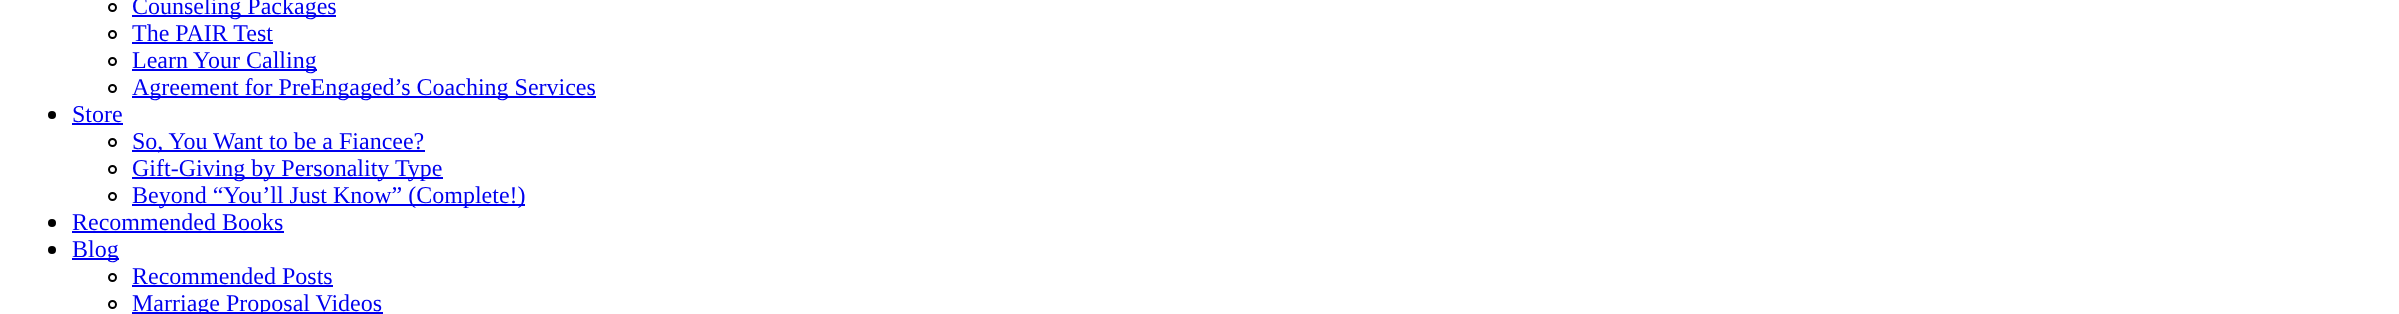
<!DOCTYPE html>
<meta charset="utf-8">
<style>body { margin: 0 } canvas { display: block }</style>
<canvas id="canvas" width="2399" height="314"></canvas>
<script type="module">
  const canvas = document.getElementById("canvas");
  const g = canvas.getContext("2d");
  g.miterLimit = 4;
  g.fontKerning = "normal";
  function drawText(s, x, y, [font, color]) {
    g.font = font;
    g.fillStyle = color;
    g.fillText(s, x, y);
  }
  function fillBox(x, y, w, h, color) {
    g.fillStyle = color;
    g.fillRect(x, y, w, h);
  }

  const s1 = ["24px Liberation Serif", "#0000EE"];

  fillBox(0, 0, 2399, 314, "#FFFFFF");
  g.beginPath();
  g.arc(112.5, 7.5, 3.5, 0, Math.PI * 2);
  g.strokeStyle = "#000000";
  g.lineWidth = 2;
  g.stroke();
  fillBox(132, 15, 204, 2, "#0000EE");
  drawText("Counseling Packages", 132, 14, s1);
  g.beginPath();
  g.arc(112.5, 34.5, 3.5, 0, Math.PI * 2);
  g.stroke();
  drawText("The PAIR Test", 132, 41, s1);
  fillBox(132, 42, 141, 2, "#0000EE");
  g.beginPath();
  g.arc(112.5, 61.5, 3.5, 0, Math.PI * 2);
  g.stroke();
  fillBox(132, 69, 185, 2, "#0000EE");
  drawText("Learn Your Calling", 132, 68, s1);
  g.beginPath();
  g.arc(112.5, 88.5, 3.5, 0, Math.PI * 2);
  g.stroke();
  fillBox(132, 96, 464, 2, "#0000EE");
  drawText("Agreement for PreEngaged’s Coaching Services", 132, 95, s1);
  g.fillStyle = "#000000";
  g.beginPath();
  g.arc(52, 115, 4, 0, Math.PI * 2);
  g.fill();
  drawText("Store", 72, 122, s1);
  fillBox(72, 123, 51, 2, "#0000EE");
  g.beginPath();
  g.arc(112.5, 142.5, 3.5, 0, Math.PI * 2);
  g.stroke();
  fillBox(132, 150, 293, 2, "#0000EE");
  drawText("So, You Want to be a Fiancee?", 132, 149, s1);
  g.beginPath();
  g.arc(112.5, 169.5, 3.5, 0, Math.PI * 2);
  g.stroke();
  fillBox(132, 177, 311, 2, "#0000EE");
  drawText("Gift-Giving by Personality Type", 132, 176, s1);
  g.beginPath();
  g.arc(112.5, 196.5, 3.5, 0, Math.PI * 2);
  g.stroke();
  fillBox(132, 204, 393, 2, "#0000EE");
  drawText("Beyond “You’ll Just Know” (Complete!)", 132, 203, s1);
  g.fillStyle = "#000000";
  g.beginPath();
  g.arc(52, 223, 4, 0, Math.PI * 2);
  g.fill();
  drawText("Recommended Books", 72, 230, s1);
  fillBox(72, 231, 212, 2, "#0000EE");
  g.fillStyle = "#000000";
  g.beginPath();
  g.arc(52, 250, 4, 0, Math.PI * 2);
  g.fill();
  fillBox(72, 258, 47, 2, "#0000EE");
  drawText("Blog", 72, 257, s1);
  g.beginPath();
  g.arc(112.5, 277.5, 3.5, 0, Math.PI * 2);
  g.stroke();
  drawText("Recommended Posts", 132, 284, s1);
  fillBox(132, 285, 201, 2, "#0000EE");
  g.beginPath();
  g.arc(112.5, 304.5, 3.5, 0, Math.PI * 2);
  g.stroke();
  fillBox(132, 312, 251, 2, "#0000EE");
  drawText("Marriage Proposal Videos", 132, 311, s1);
</script>
